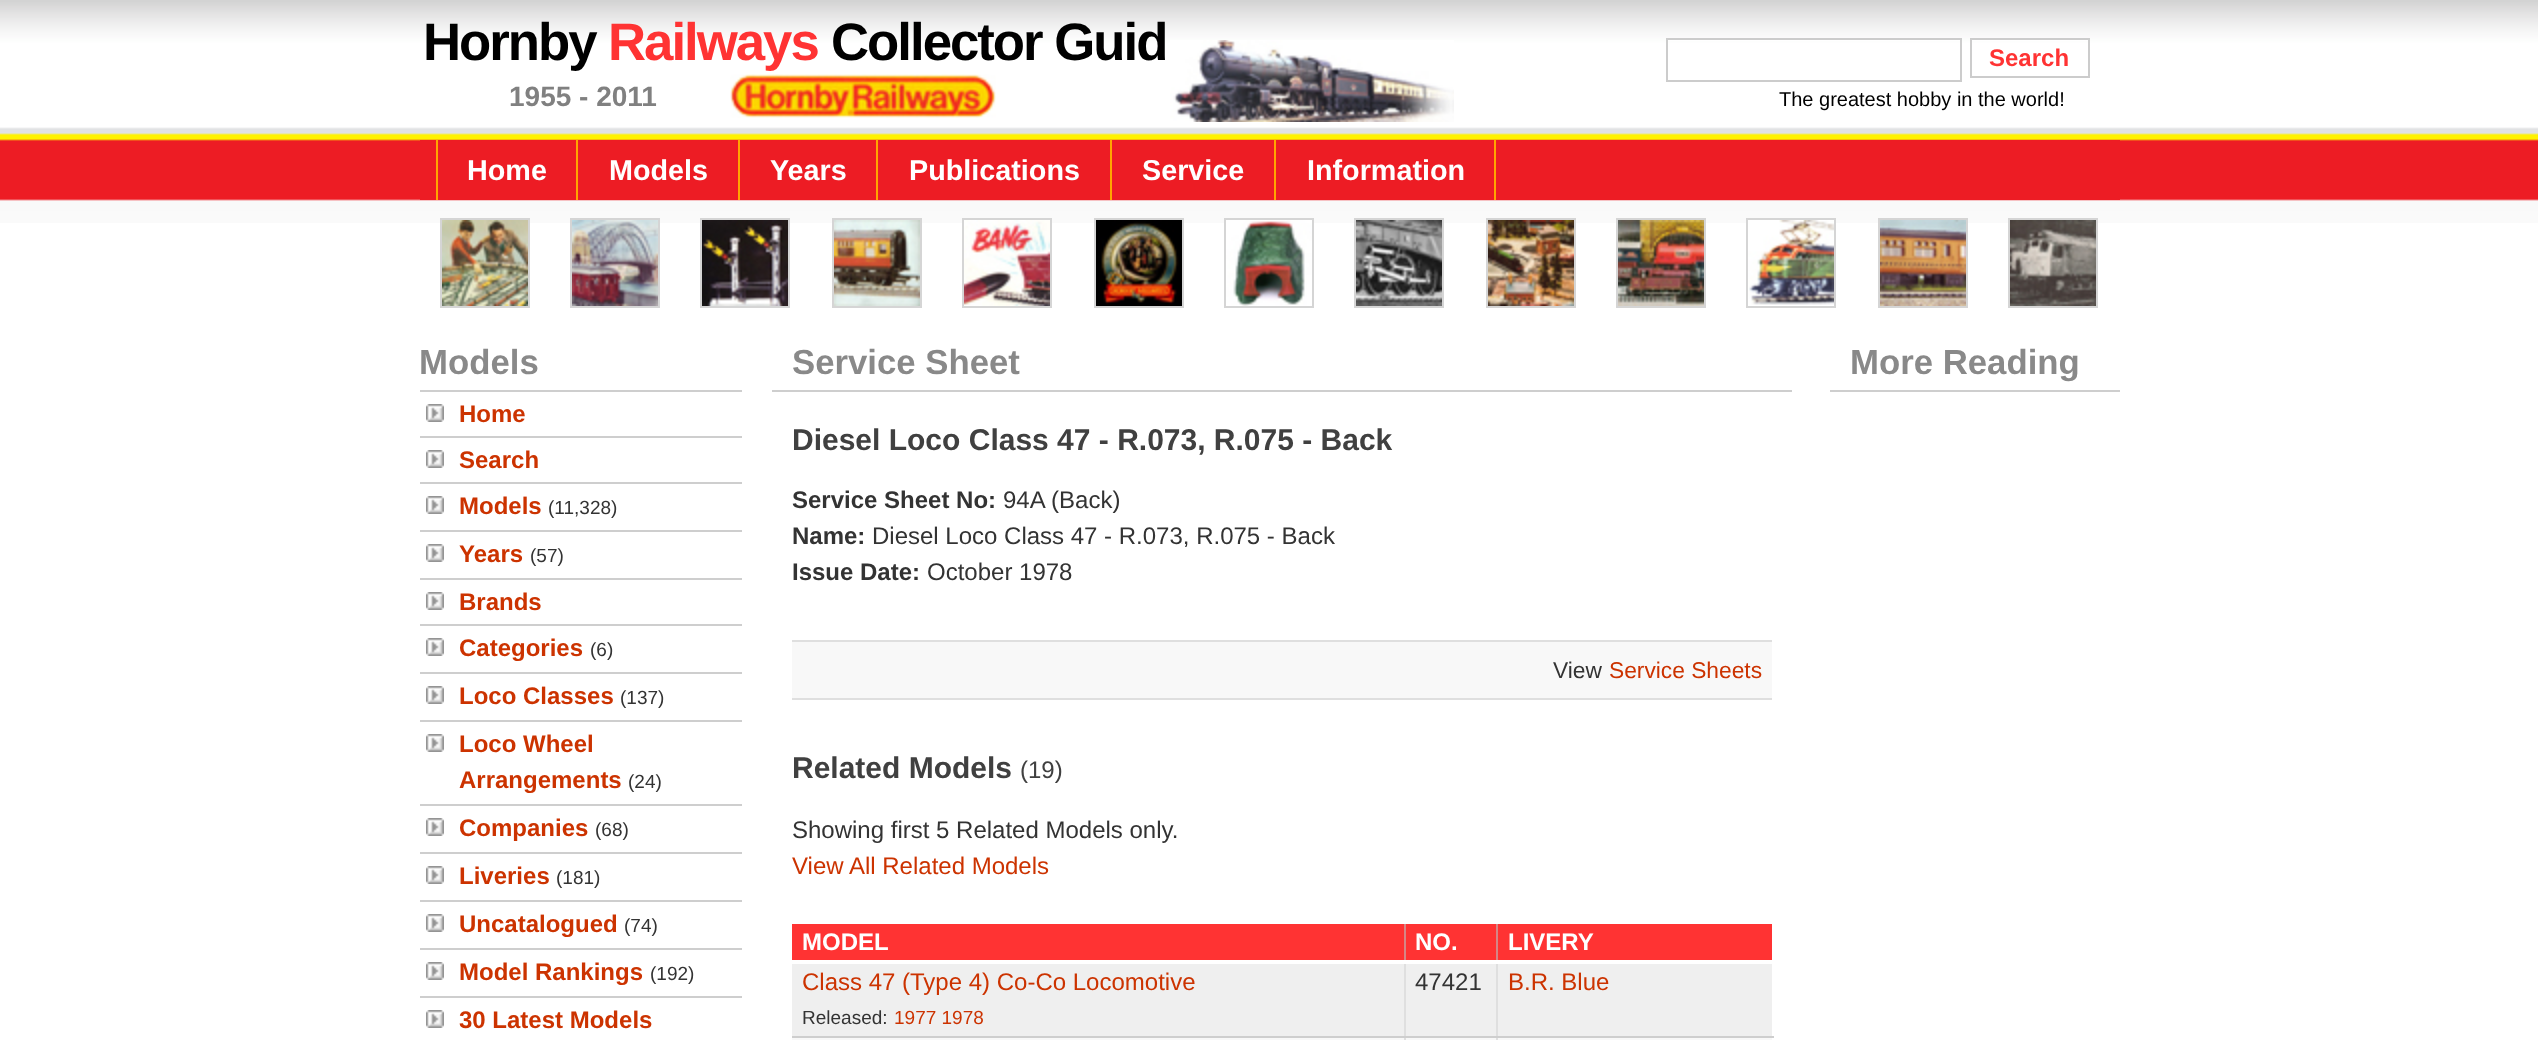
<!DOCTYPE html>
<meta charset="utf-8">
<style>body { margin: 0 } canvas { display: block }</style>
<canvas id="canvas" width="2538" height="1040"></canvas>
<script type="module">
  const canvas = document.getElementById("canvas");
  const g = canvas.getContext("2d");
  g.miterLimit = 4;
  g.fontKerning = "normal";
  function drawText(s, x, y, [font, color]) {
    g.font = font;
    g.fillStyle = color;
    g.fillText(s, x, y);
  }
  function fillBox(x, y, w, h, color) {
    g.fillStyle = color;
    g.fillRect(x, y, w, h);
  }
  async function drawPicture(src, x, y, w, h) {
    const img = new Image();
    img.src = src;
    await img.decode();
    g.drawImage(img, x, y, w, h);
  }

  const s1 = ["bold 52.75px Liberation Sans", "#000000"];
  const s2 = ["bold 52.75px Liberation Sans", "#FF3333"];
  const s3 = ["bold 24px Liberation Sans", "#FF3333"];
  const s4 = ["bold 28px Liberation Sans", "#808080"];
  const s5 = ["20px Liberation Sans", "#000000"];
  const s6 = ["bold 28.75px Liberation Sans", "#FFFFFF"];
  const s7 = ["bold 34.75px Liberation Sans", "#898989"];
  const s8 = ["bold 24px Liberation Sans", "#CC3300"];
  const s9 = ["19px Liberation Sans", "#333333"];
  const s10 = ["bold 30px Liberation Sans", "#404040"];
  const s11 = ["bold 24px Liberation Sans", "#333333"];
  const s12 = ["24px Liberation Sans", "#333333"];
  const s13 = ["22.75px Liberation Sans", "#333333"];
  const s14 = ["22.75px Liberation Sans", "#CC3300"];
  const s15 = ["24px Liberation Sans", "#404040"];
  const s16 = ["24px Liberation Sans", "#CC3300"];
  const s17 = ["bold 24px Liberation Sans", "#FFFFFF"];
  const s18 = ["19px Liberation Sans", "#CC3300"];

  fillBox(0, 0, 2538, 1040, "#FFFFFF");
  await drawPicture("pic1.png", 0, 0, 2538, 223);
  g.letterSpacing = "-2px";
  drawText("Hornby", 423, 60, s1);
  drawText("Railways", 608, 60, s2);
  drawText("Collector Guid", 831, 60, s1);
  await drawPicture("pic2.png", 1170, 40, 284, 82);
  fillBox(1668, 40, 292, 1, "#FFFFFF");
  g.strokeStyle = "#CCCCCC";
  g.lineWidth = 2;
  g.strokeRect(1667, 39, 294, 42);
  fillBox(1972, 40, 116, 1, "#FFFFFF");
  g.strokeRect(1971, 39, 118, 38);
  g.letterSpacing = "0px";
  drawText("Search", 1989, 66, s3);
  drawText("1955 - 2011", 509, 106, s4);
  await drawPicture("pic3.png", 730, 74, 266, 44);
  drawText("The greatest hobby in the world!", 1779, 106, s5);
  fillBox(420, 140, 1700, 60, "#ED1C24");
  fillBox(576, 140, 2, 60, "#FFA500");
  fillBox(436, 140, 2, 60, "#FFA500");
  drawText("Home", 467, 180, s6);
  fillBox(738, 140, 2, 60, "#FFA500");
  drawText("Models", 609, 180, s6);
  fillBox(876, 140, 2, 60, "#FFA500");
  drawText("Years", 770, 180, s6);
  fillBox(1110, 140, 2, 60, "#FFA500");
  drawText("Publications", 909, 180, s6);
  fillBox(1274, 140, 2, 60, "#FFA500");
  drawText("Service", 1142, 180, s6);
  fillBox(1494, 140, 2, 60, "#FFA500");
  drawText("Information", 1307, 180, s6);
  g.strokeStyle = "#D5D5D5";
  g.strokeRect(441, 219, 88, 88);
  await drawPicture("pic4.png", 442, 220, 86, 86);
  g.strokeRect(571, 219, 88, 88);
  await drawPicture("pic5.png", 572, 220, 86, 86);
  g.strokeRect(701, 219, 88, 88);
  await drawPicture("pic6.png", 702, 220, 86, 86);
  g.strokeRect(833, 219, 88, 88);
  await drawPicture("pic7.png", 834, 220, 86, 86);
  g.strokeRect(963, 219, 88, 88);
  await drawPicture("pic8.png", 964, 220, 86, 86);
  g.strokeRect(1095, 219, 88, 88);
  await drawPicture("pic9.png", 1096, 220, 86, 86);
  g.strokeRect(1225, 219, 88, 88);
  await drawPicture("pic10.png", 1226, 220, 86, 86);
  g.strokeRect(1355, 219, 88, 88);
  await drawPicture("pic11.png", 1356, 220, 86, 86);
  g.strokeRect(1487, 219, 88, 88);
  await drawPicture("pic12.png", 1488, 220, 86, 86);
  g.strokeRect(1617, 219, 88, 88);
  await drawPicture("pic13.png", 1618, 220, 86, 86);
  g.strokeRect(1747, 219, 88, 88);
  await drawPicture("pic14.png", 1748, 220, 86, 85);
  g.strokeRect(1879, 219, 88, 88);
  await drawPicture("pic15.png", 1880, 220, 86, 86);
  g.strokeRect(2009, 219, 88, 88);
  await drawPicture("pic16.png", 2010, 220, 86, 86);
  fillBox(420, 390, 322, 2, "#CECECE");
  drawText("Models", 419, 374, s7);
  await drawPicture("pic17.png", 426, 404, 18, 18);
  fillBox(420, 436, 322, 2, "#CECECE");
  drawText("Home", 459, 422, s8);
  await drawPicture("pic17.png", 426, 450, 18, 18);
  fillBox(420, 482, 322, 2, "#CECECE");
  drawText("Search", 459, 468, s8);
  await drawPicture("pic17.png", 426, 496, 18, 18);
  fillBox(420, 530, 322, 2, "#CECECE");
  drawText("Models", 459, 514, s8);
  drawText("(11,328)", 548, 514, s9);
  await drawPicture("pic17.png", 426, 544, 18, 18);
  fillBox(420, 578, 322, 2, "#CECECE");
  drawText("Years", 459, 562, s8);
  drawText("(57)", 530, 562, s9);
  await drawPicture("pic17.png", 426, 592, 18, 18);
  fillBox(420, 624, 322, 2, "#CECECE");
  drawText("Brands", 459, 610, s8);
  await drawPicture("pic17.png", 426, 638, 18, 18);
  fillBox(420, 672, 322, 2, "#CECECE");
  drawText("Categories", 459, 656, s8);
  drawText("(6)", 590, 656, s9);
  await drawPicture("pic17.png", 426, 686, 18, 18);
  fillBox(420, 720, 322, 2, "#CECECE");
  drawText("Loco Classes", 459, 704, s8);
  drawText("(137)", 620, 704, s9);
  await drawPicture("pic17.png", 426, 734, 18, 18);
  fillBox(420, 804, 322, 2, "#CECECE");
  drawText("Loco Wheel", 459, 752, s8);
  drawText("Arrangements", 459, 788, s8);
  drawText("(24)", 628, 788, s9);
  await drawPicture("pic17.png", 426, 818, 18, 18);
  fillBox(420, 852, 322, 2, "#CECECE");
  drawText("Companies", 459, 836, s8);
  drawText("(68)", 595, 836, s9);
  await drawPicture("pic17.png", 426, 866, 18, 18);
  fillBox(420, 900, 322, 2, "#CECECE");
  drawText("Liveries", 459, 884, s8);
  drawText("(181)", 556, 884, s9);
  await drawPicture("pic17.png", 426, 914, 18, 18);
  fillBox(420, 948, 322, 2, "#CECECE");
  drawText("Uncatalogued", 459, 932, s8);
  drawText("(74)", 624, 932, s9);
  await drawPicture("pic17.png", 426, 962, 18, 18);
  fillBox(420, 996, 322, 2, "#CECECE");
  drawText("Model Rankings", 459, 980, s8);
  drawText("(192)", 650, 980, s9);
  await drawPicture("pic17.png", 426, 1010, 18, 18);
  drawText("30 Latest Models", 459, 1028, s8);
  fillBox(772, 390, 1020, 2, "#CECECE");
  drawText("Service Sheet", 792, 374, s7);
  drawText("Diesel Loco Class 47 - R.073, R.075 - Back", 792, 450, s10);
  drawText("Service Sheet No:", 792, 508, s11);
  drawText("94A (Back)", 1003, 508, s12);
  drawText("Name:", 792, 544, s11);
  drawText("Diesel Loco Class 47 - R.073, R.075 - Back", 872, 544, s12);
  drawText("Issue Date:", 792, 580, s11);
  drawText("October 1978", 927, 580, s12);
  fillBox(792, 642, 980, 56, "#F8F8F8");
  fillBox(792, 640, 980, 2, "#DFDFDF");
  fillBox(792, 698, 980, 2, "#DFDFDF");
  drawText("View", 1553, 678, s13);
  drawText("Service Sheets", 1609, 678, s14);
  drawText("Related Models", 792, 778, s10);
  drawText("(19)", 1020, 778, s15);
  drawText("Showing first 5 Related Models only.", 792, 838, s12);
  drawText("View All Related Models", 792, 874, s16);
  fillBox(792, 924, 612, 36, "#FF3333");
  drawText("MODEL", 802, 950, s17);
  fillBox(1406, 924, 90, 36, "#FF3333");
  fillBox(792, 964, 980, 72, "#EFEFEF");
  fillBox(792, 1038, 980, 2, "#F8F8F8");
  fillBox(1496, 1036, 2, 4, "#DFDFDF");
  fillBox(1496, 1036, 278, 2, "#CECECE");
  fillBox(1496, 962, 2, 76, "#DFDFDF");
  fillBox(1404, 1036, 2, 4, "#DFDFDF");
  fillBox(1404, 1036, 94, 2, "#CECECE");
  fillBox(1404, 962, 2, 76, "#DFDFDF");
  fillBox(1404, 924, 2, 40, "#D68686");
  fillBox(1402, 960, 4, 4, "#FFFFFF");
  drawText("NO.", 1415, 950, s17);
  fillBox(1498, 924, 274, 36, "#FF3333");
  fillBox(1496, 924, 2, 40, "#D68686");
  fillBox(1496, 960, 2, 4, "#FFFFFF");
  drawText("LIVERY", 1508, 950, s17);
  fillBox(792, 1036, 614, 2, "#CECECE");
  drawText("Class 47 (Type 4) Co-Co Locomotive", 802, 990, s16);
  drawText("Released:", 802, 1024, s9);
  drawText("1977 1978", 894, 1024, s18);
  drawText("47421", 1415, 990, s12);
  drawText("B.R. Blue", 1508, 990, s16);
  fillBox(1830, 390, 290, 2, "#CECECE");
  drawText("More Reading", 1850, 374, s7);
</script>
